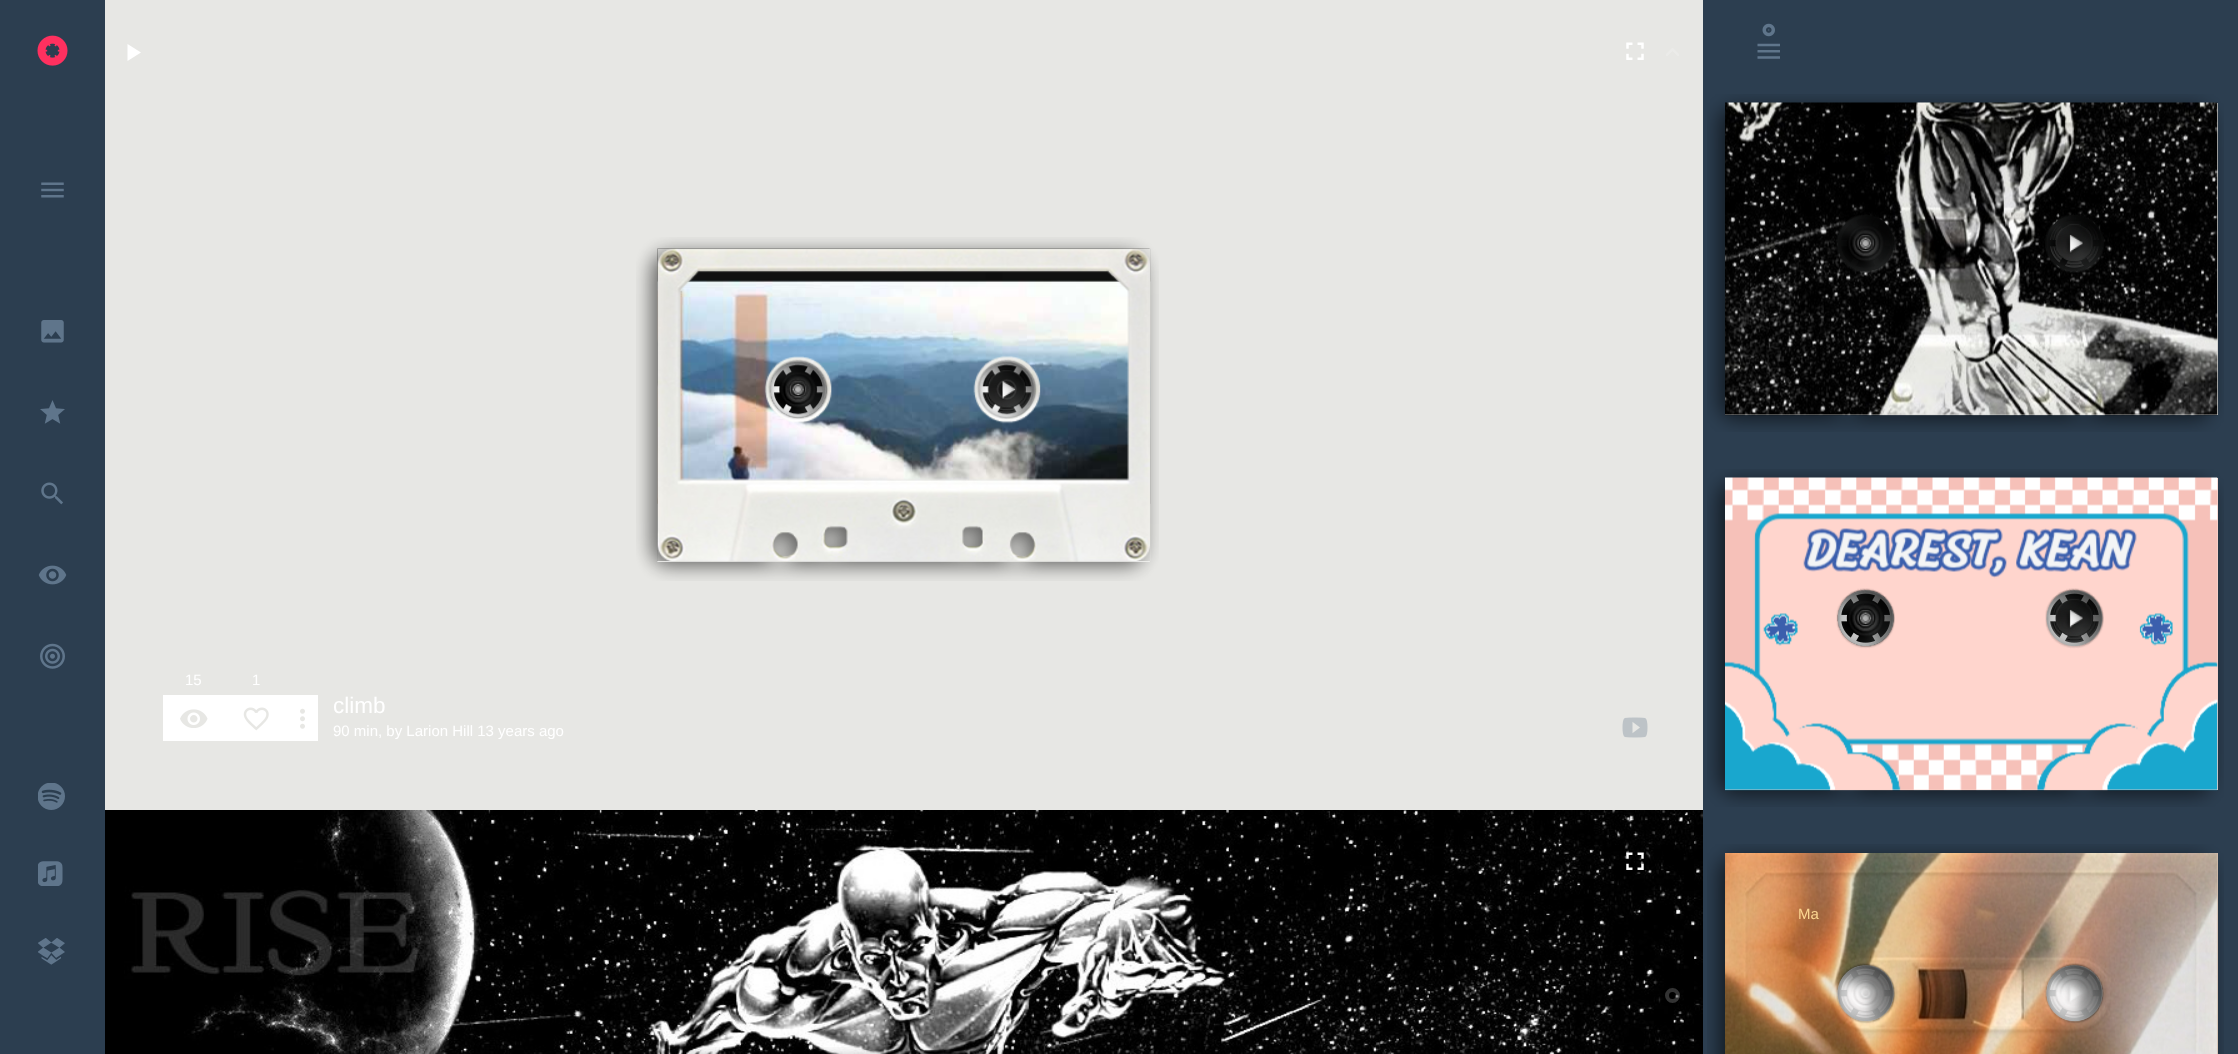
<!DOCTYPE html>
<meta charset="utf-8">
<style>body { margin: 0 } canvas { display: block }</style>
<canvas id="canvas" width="2238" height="1054"></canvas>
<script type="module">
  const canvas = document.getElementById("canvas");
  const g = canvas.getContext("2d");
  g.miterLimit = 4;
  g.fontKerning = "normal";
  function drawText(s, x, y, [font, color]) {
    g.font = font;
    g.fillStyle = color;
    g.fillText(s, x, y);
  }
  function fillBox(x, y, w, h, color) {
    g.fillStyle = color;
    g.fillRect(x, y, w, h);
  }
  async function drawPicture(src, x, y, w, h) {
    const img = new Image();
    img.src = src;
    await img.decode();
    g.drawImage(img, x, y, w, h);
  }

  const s1 = ["15px Liberation Sans", "#FFFFFF"];
  const s2 = ["22.5px Liberation Sans", "#FFFFFF"];
  const s3 = ["15px Liberation Sans", "#FCD792"];

  fillBox(0, 0, 2238, 1054, "#2C3E50");
  fillBox(105, 0, 1598, 810, "#E7E7E4");
  await drawPicture("pic13.png", 636, 237, 523, 344);
  await drawPicture("pic14.png", 657, 248, 494, 314);
  await drawPicture("pic15.png", 657, 248, 494, 256);
  await drawPicture("pic1.png", 657, 248, 493, 314);
  await drawPicture("pic2.png", 37, 35, 31, 31);
  await drawPicture("pic3.png", 41, 182, 23, 16);
  await drawPicture("pic4.png", 41, 320, 23, 23);
  await drawPicture("pic5.png", 40, 400, 25, 24);
  await drawPicture("pic6.png", 41, 482, 22, 23);
  await drawPicture("pic7.png", 38, 565, 29, 20);
  await drawPicture("pic8.png", 40, 643, 25, 26);
  await drawPicture("pic9.png", 38, 783, 27, 27);
  await drawPicture("pic10.png", 38, 861, 25, 25);
  await drawPicture("pic11.png", 38, 938, 27, 27);
  g.fillStyle = "#FFFFFF";
  g.beginPath();
  g.moveTo(127.5, 44);
  g.lineTo(141, 52.5);
  g.lineTo(127.5, 61);
  g.closePath();
  g.fill();
  await drawPicture("pic12.png", 1666, 48, 13, 8);
  await drawPicture("pic16.png", 1626, 42, 18, 18);
  drawText("15", 185, 685, s1);
  fillBox(163, 695, 155, 45, "#FFFFFF");
  await drawPicture("pic17.png", 180, 709, 28, 19);
  drawText("1", 252, 685, s1);
  await drawPicture("pic18.png", 243, 707, 26, 24);
  await drawPicture("pic19.png", 300, 708, 5, 21);
  drawText("climb", 333, 713, s2);
  drawText("90 min, by Larion Hill 13 years ago", 333, 736, s1);
  await drawPicture("pic20.png", 1622, 717, 26, 21);
  fillBox(163, 740, 155, 1, "#FFFFFF");
  await drawPicture("pic21.png", 105, 810, 1598, 244);
  await drawPicture("pic22.png", 1626, 852, 18, 18);
  await drawPicture("pic23.png", 658, 1047, 462, 7);
  g.beginPath();
  g.arc(1672.5, 995.5, 5.5, 0, Math.PI * 2);
  g.strokeStyle = "rgba(255, 254, 255, 0.2)";
  g.lineWidth = 4;
  g.stroke();
  await drawPicture("pic24.png", 1762, 23, 13, 14);
  await drawPicture("pic25.png", 1757, 43, 23, 16);
  await drawPicture("pic26.png", 1707, 94, 517, 338);
  fillBox(1725, 103, 493, 312, "#CFCFCC");
  await drawPicture("pic27.png", 1725, 102, 493, 314);
  await drawPicture("pic30.png", 1838, 216, 56, 56);
  await drawPicture("pic29.png", 1838, 215, 55, 57);
  await drawPicture("pic28.png", 1836, 215, 59, 59);
  await drawPicture("pic33.png", 2047, 216, 52, 52);
  await drawPicture("pic32.png", 2047, 215, 55, 56);
  await drawPicture("pic31.png", 2045, 215, 59, 58);
  await drawPicture("pic26.png", 1707, 469, 517, 338);
  fillBox(1725, 478, 493, 312, "#F9D2CA");
  await drawPicture("pic34.png", 1725, 477, 493, 314);
  await drawPicture("pic37.png", 1837, 591, 57, 56);
  await drawPicture("pic36.png", 1837, 590, 57, 56);
  await drawPicture("pic35.png", 1836, 588, 59, 61);
  await drawPicture("pic40.png", 2047, 591, 52, 52);
  await drawPicture("pic39.png", 2046, 590, 57, 57);
  await drawPicture("pic38.png", 2045, 588, 59, 61);
  await drawPicture("pic41.png", 1707, 844, 517, 210);
  fillBox(2217, 853, 1, 201, "#D5BEAB");
  await drawPicture("pic42.png", 1725, 853, 493, 201);
  drawText("Ma", 1798, 919, s3);
  await drawPicture("pic45.png", 1837, 966, 58, 56);
  await drawPicture("pic44.png", 1837, 965, 57, 56);
  await drawPicture("pic43.png", 1836, 963, 59, 61);
  await drawPicture("pic48.png", 2045, 966, 58, 56);
  await drawPicture("pic47.png", 2046, 965, 57, 57);
  await drawPicture("pic46.png", 2045, 963, 59, 60);
</script>
